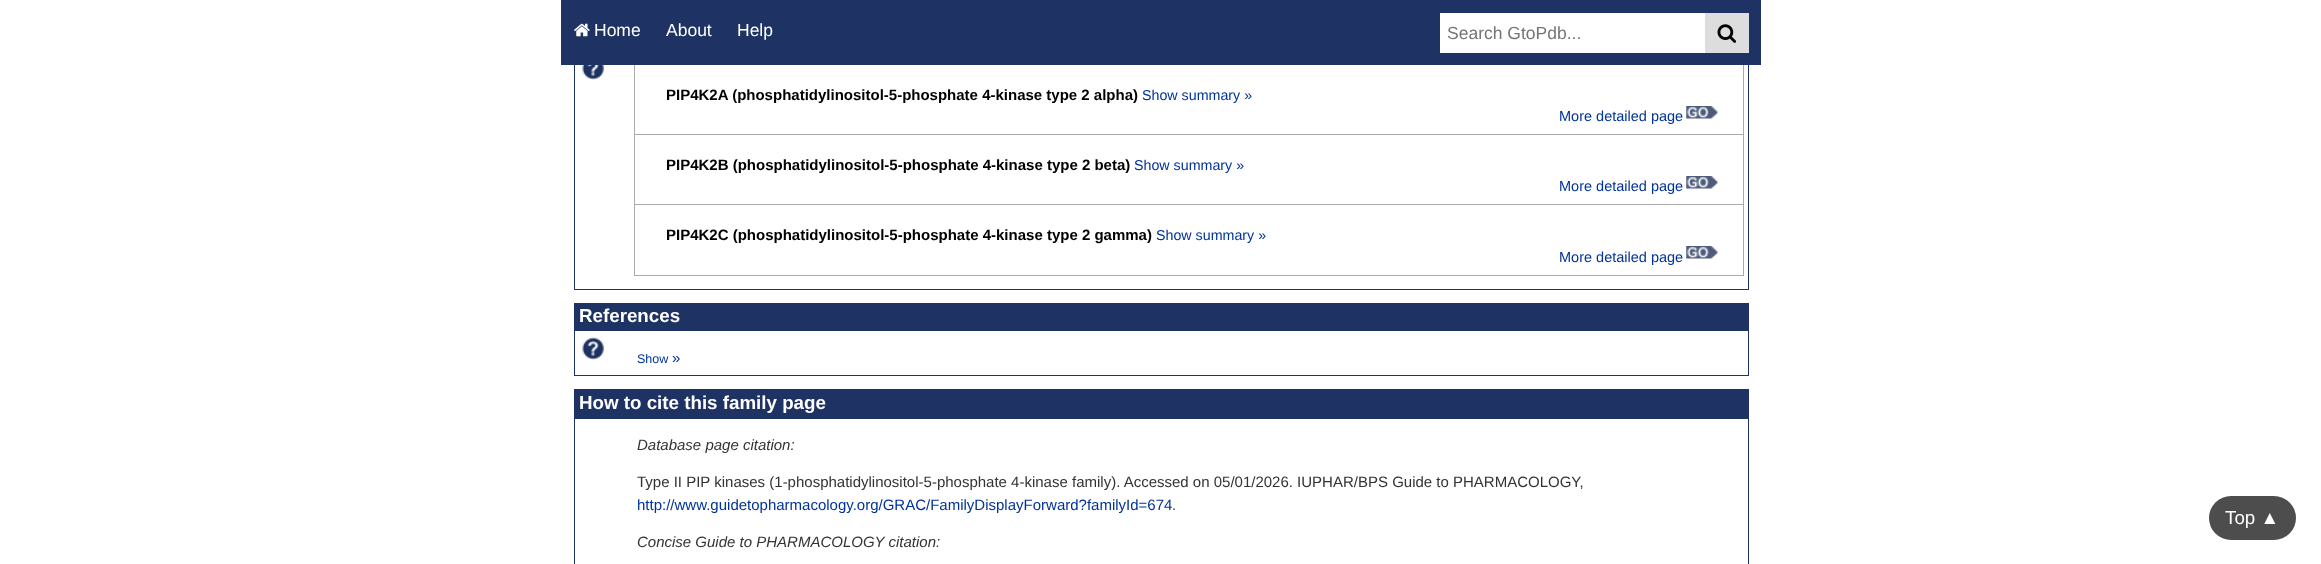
<!DOCTYPE html>
<meta charset="utf-8">
<style>body { margin: 0 } canvas { display: block }</style>
<canvas id="canvas" width="2321" height="564"></canvas>
<script type="module">
  const canvas = document.getElementById("canvas");
  const g = canvas.getContext("2d");
  g.miterLimit = 4;
  g.fontKerning = "normal";
  function drawText(s, x, y, [font, color]) {
    g.font = font;
    g.fillStyle = color;
    g.fillText(s, x, y);
  }
  function fillBox(x, y, w, h, color) {
    g.fillStyle = color;
    g.fillRect(x, y, w, h);
  }
  function fillRounded(x, y, w, h, r, color) {
    g.fillStyle = color;
    g.beginPath();
    g.roundRect(x, y, w, h, r);
    g.fill();
  }
  async function drawPicture(src, x, y, w, h) {
    const img = new Image();
    img.src = src;
    await img.decode();
    g.drawImage(img, x, y, w, h);
  }

  const s1 = ["17.5px Liberation Sans", "#FFFFFF"];
  const s2 = ["17.5px Liberation Sans", "#757575"];
  const s3 = ["bold 15px Liberation Sans", "#000000"];
  const s4 = ["14.25px Liberation Sans", "#003399"];
  const s5 = ["14.5px Liberation Sans", "#003399"];
  const s6 = ["bold 18.75px Liberation Sans", "#FFFFFF"];
  const s7 = ["12.5px Liberation Sans", "#003399"];
  const s8 = ["15px Liberation Sans", "#003399"];
  const s9 = ["italic 15px Liberation Sans", "#333333"];
  const s10 = ["15px Liberation Sans", "#333333"];
  const s11 = ["18.75px Liberation Sans", "#FFFFFF"];

  fillBox(0, 0, 2321, 564, "#FFFFFF");
  g.strokeStyle = "#1E3363";
  g.strokeRect(574.5, 50.5, 1174, 239);
  fillBox(634, 134, 1110, 1, "#AAAAAA");
  fillBox(634, 204, 1110, 1, "#AAAAAA");
  fillBox(1743, 204, 1, 72, "#AAAAAA");
  fillBox(1743, 64, 1, 141, "#AAAAAA");
  fillBox(634, 275, 1110, 1, "#AAAAAA");
  fillBox(634, 204, 1, 72, "#AAAAAA");
  fillBox(634, 64, 1, 141, "#AAAAAA");
  fillBox(561, 0, 1200, 65, "#1E3363");
  await drawPicture("pic1.png", 574, 23, 16, 14);
  drawText("Home", 594, 36, s1);
  drawText("About", 666, 36, s1);
  drawText("Help", 737, 36, s1);
  fillBox(1440, 13, 265, 40, "#FFFFFF");
  drawText("Search GtoPdb...", 1447, 39, s2);
  fillBox(1705, 13, 44, 40, "#DDDDDD");
  await drawPicture("pic2.png", 1717, 24, 20, 19);
  await drawPicture("pic3.png", 582, 65, 22, 15);
  drawText("PIP4K2A (phosphatidylinositol-5-phosphate 4-kinase type 2 alpha)", 666, 100, s3);
  drawText("Show summary »", 1142, 100, s4);
  drawText("More detailed page", 1559, 121, s5);
  await drawPicture("pic4.png", 1686, 106, 32, 13);
  drawText("PIP4K2B (phosphatidylinositol-5-phosphate 4-kinase type 2 beta)", 666, 170, s3);
  drawText("Show summary »", 1134, 170, s4);
  drawText("More detailed page", 1559, 191, s5);
  await drawPicture("pic4.png", 1686, 176, 32, 13);
  drawText("PIP4K2C (phosphatidylinositol-5-phosphate 4-kinase type 2 gamma)", 666, 240, s3);
  drawText("Show summary »", 1156, 240, s4);
  drawText("More detailed page", 1559, 262, s5);
  await drawPicture("pic4.png", 1686, 246, 32, 13);
  fillBox(574, 303, 1175, 27, "#1E3363");
  drawText("References", 579, 322, s6);
  g.strokeRect(574.5, 330.5, 1174, 45);
  await drawPicture("pic5.png", 582, 337, 22, 23);
  drawText("Show", 637, 363, s7);
  drawText("»", 672, 363, s8);
  fillBox(574, 389, 1175, 29, "#1E3363");
  drawText("How to cite this family page", 579, 409, s6);
  g.strokeRect(574.5, 418.5, 1174, 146);
  drawText("Database page citation:", 637, 450, s9);
  drawText("Type II PIP kinases (1-phosphatidylinositol-5-phosphate 4-kinase family). Accessed on 05/01/2026. IUPHAR/BPS Guide to PHARMACOLOGY,", 637, 487, s10);
  drawText("http://www.guidetopharmacology.org/GRAC/FamilyDisplayForward?familyId=674", 637, 510, s8);
  drawText(".", 1172, 510, s10);
  drawText("Concise Guide to PHARMACOLOGY citation:", 637, 547, s9);
  fillRounded(2209, 496, 87, 44, 22, "#4D4D4D");
  drawText("Top ▲", 2225, 524, s11);
</script>
